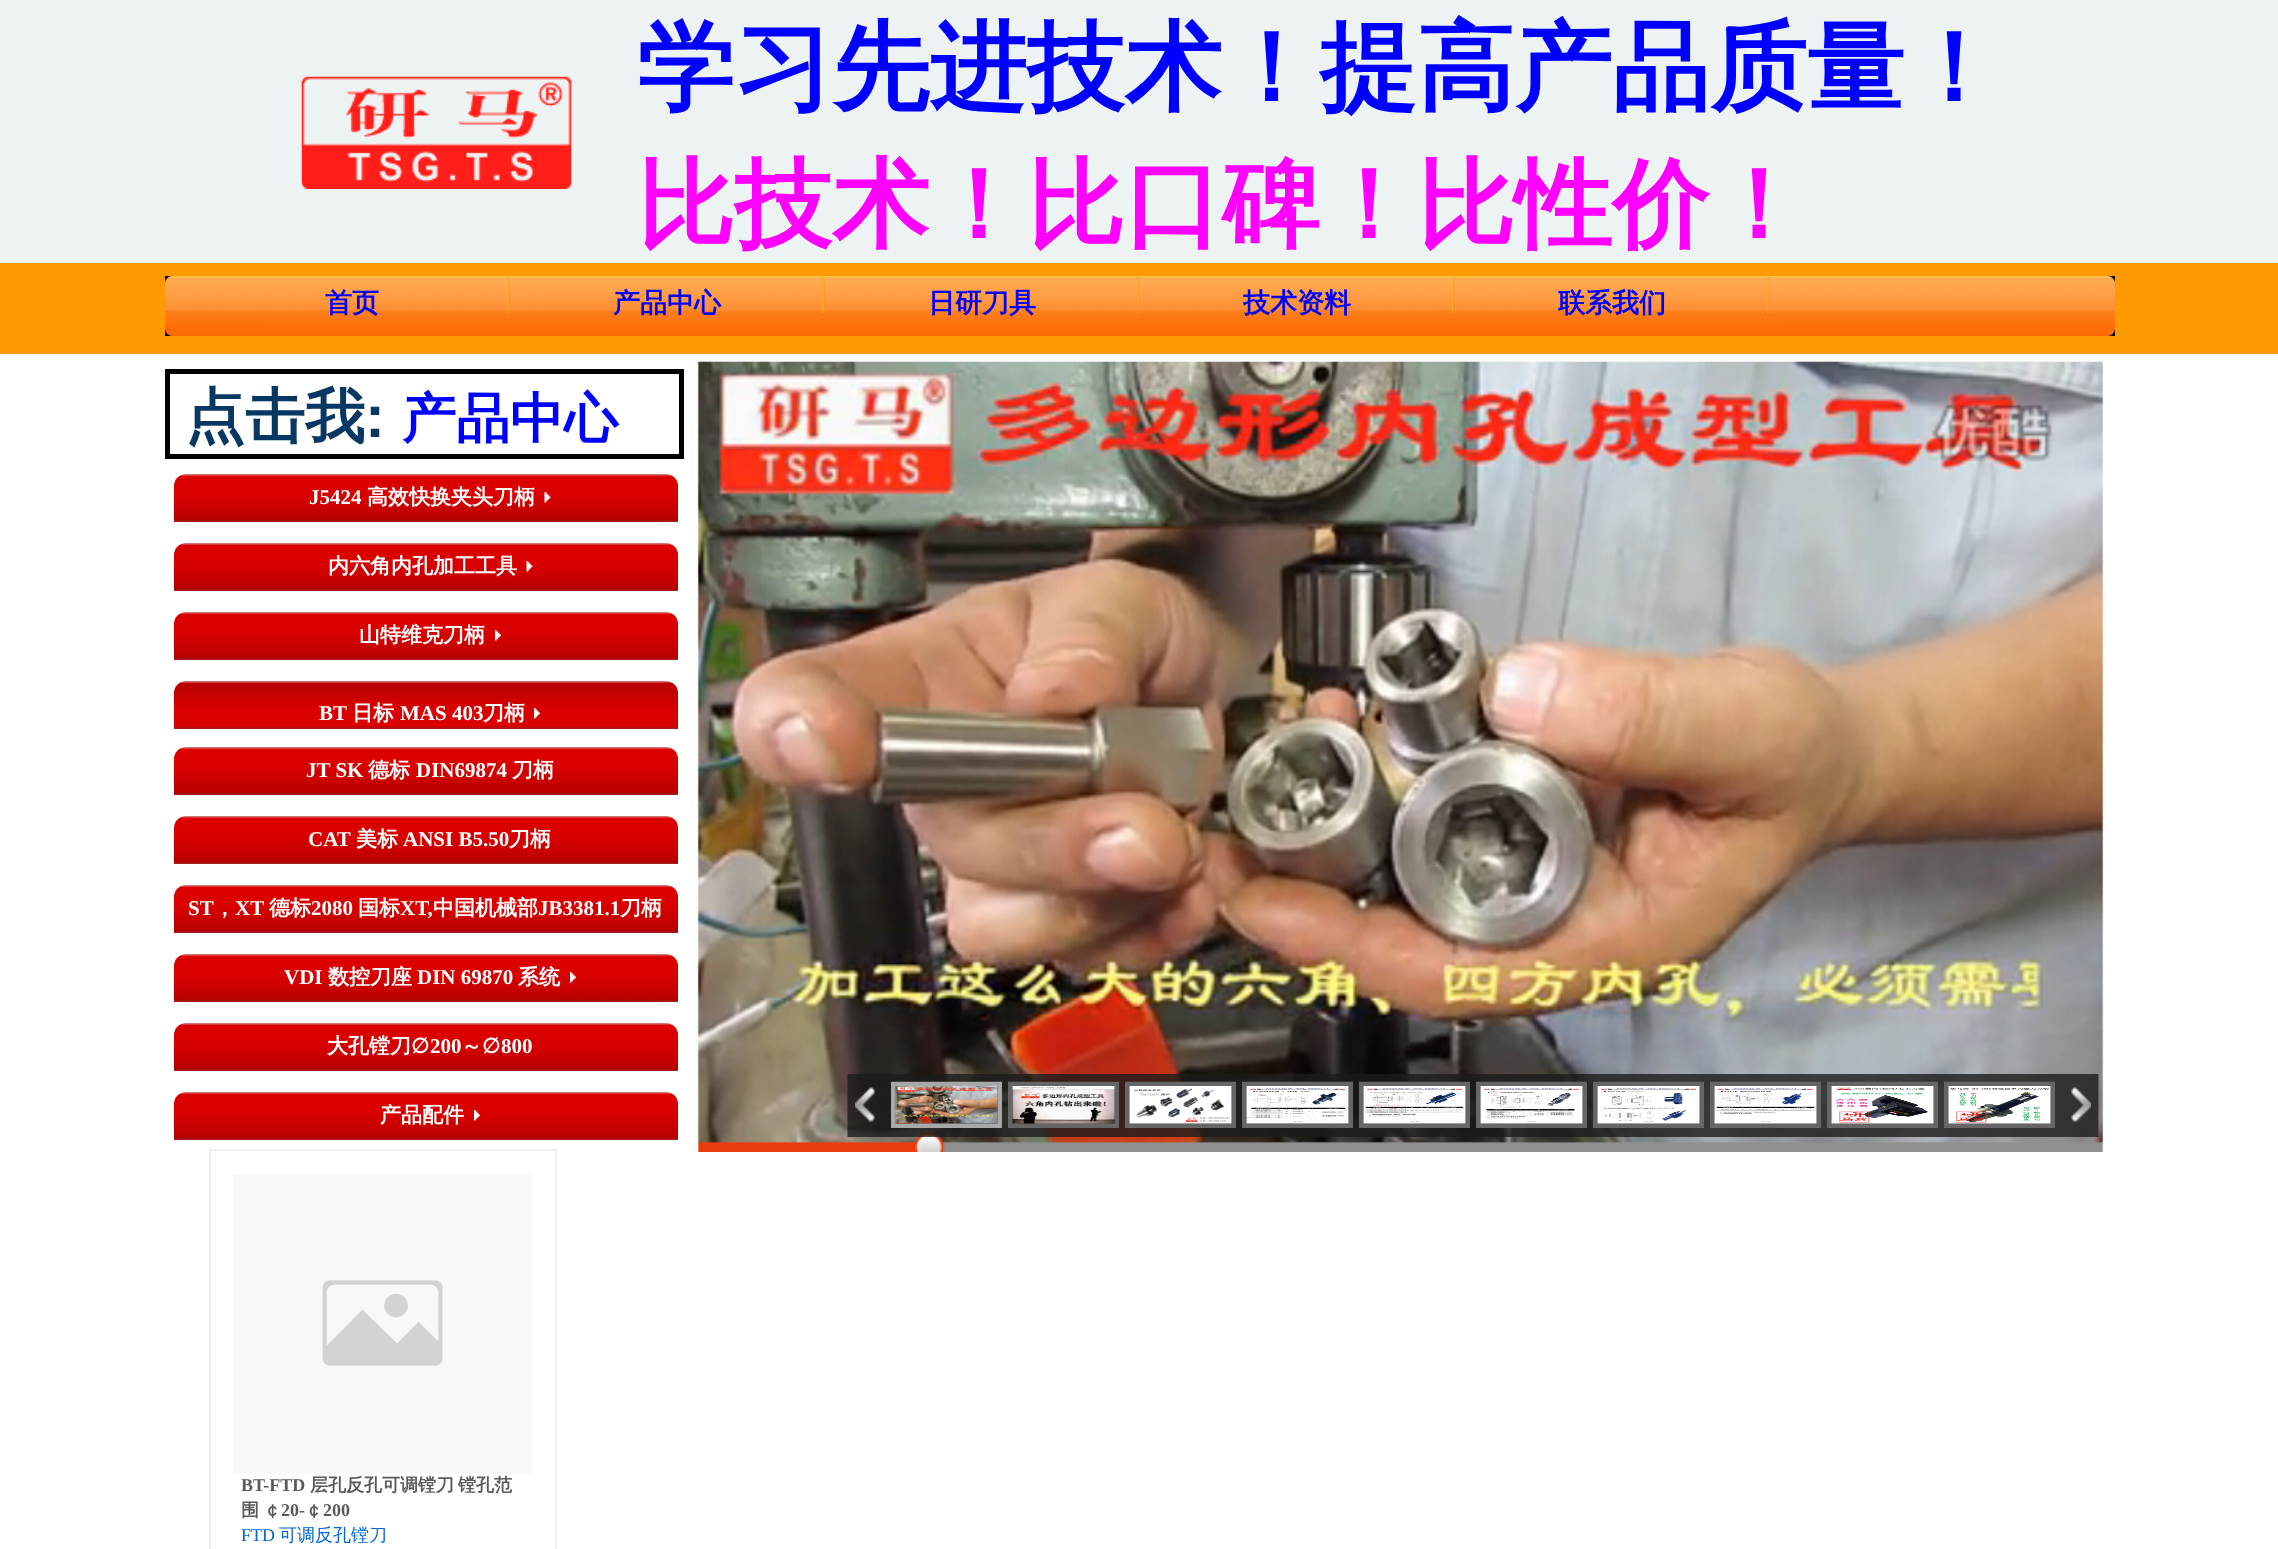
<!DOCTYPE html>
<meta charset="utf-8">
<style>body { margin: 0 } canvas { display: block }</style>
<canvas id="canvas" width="2278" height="1549"></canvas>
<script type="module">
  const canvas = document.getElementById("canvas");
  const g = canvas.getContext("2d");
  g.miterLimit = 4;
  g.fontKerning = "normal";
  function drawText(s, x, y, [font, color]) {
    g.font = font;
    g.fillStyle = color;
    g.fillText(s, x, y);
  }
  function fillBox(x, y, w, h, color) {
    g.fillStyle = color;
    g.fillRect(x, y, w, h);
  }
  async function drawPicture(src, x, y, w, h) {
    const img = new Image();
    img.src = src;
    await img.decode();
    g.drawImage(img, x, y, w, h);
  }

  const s1 = ["bold 97.5px WenQuanYi Zen Hei", "#0000FF"];
  const s2 = ["bold 97.5px WenQuanYi Zen Hei", "#FF00FF"];
  const s3 = ["bold 27px WenQuanYi Zen Hei", "#0000FF"];
  const s4 = ["bold 60px WenQuanYi Zen Hei", "#073763"];
  const s5 = ["bold 60px Liberation Sans", "#073763"];
  const s6 = ["bold 54px WenQuanYi Zen Hei", "#0000FF"];
  const s7 = ["bold 21px Liberation Serif", "#FFFFFF"];
  const s8 = ["bold 21px WenQuanYi Zen Hei", "#FFFFFF"];
  const s9 = ["bold 21px DejaVu Sans", "#FFFFFF"];
  const s10 = ["bold 18px Liberation Serif", "#5A5A5A"];
  const s11 = ["bold 18px WenQuanYi Zen Hei", "#5A5A5A"];
  const s12 = ["18px Liberation Serif", "#0064D4"];
  const s13 = ["500 18px WenQuanYi Zen Hei", "#0064D4"];

  fillBox(0, 0, 2278, 1549, "#FFFFFF");
  fillBox(0, 0, 2278, 263, "#ECF3F2");
  await drawPicture("pic1.png", 301, 76, 271, 113);
  drawText("学习先进技术！提高产品质量！", 637, 101, s1);
  drawText("比技术！比口碑！比性价！", 637, 238, s2);
  fillBox(0, 263, 2278, 91, "#FF9900");
  fillBox(165, 276, 1950, 60, "#000000");
  await drawPicture("pic2.png", 165, 276, 1950, 60);
  await drawPicture("pic3.png", 507, 276, 3, 38);
  drawText("首页", 325, 312, s3);
  await drawPicture("pic4.png", 822, 276, 3, 38);
  drawText("产品中心", 613, 312, s3);
  await drawPicture("pic3.png", 1137, 276, 3, 38);
  drawText("日研刀具", 928, 312, s3);
  await drawPicture("pic4.png", 1452, 276, 3, 38);
  drawText("技术资料", 1243, 312, s3);
  await drawPicture("pic4.png", 1767, 276, 3, 38);
  drawText("联系我们", 1558, 312, s3);
  g.strokeStyle = "#000000";
  g.lineWidth = 5;
  g.strokeRect(167.5, 371.5, 514, 85);
  drawText("点击我", 185, 437, s4);
  drawText(":", 365, 437, s5);
  drawText("产品中心", 402, 437, s6);
  await drawPicture("pic5.png", 690, 361, 1414, 791);
  await drawPicture("pic6.png", 174, 474, 504, 48);
  drawText("J5424", 309, 504, s7);
  drawText("高效快换夹头刀柄", 367, 504, s8);
  await drawPicture("pic7.png", 544, 492, 7, 11);
  await drawPicture("pic8.png", 174, 543, 504, 48);
  drawText("内六角内孔加工工具", 328, 573, s8);
  await drawPicture("pic7.png", 526, 561, 7, 11);
  await drawPicture("pic9.png", 174, 612, 504, 48);
  drawText("山特维克刀柄", 359, 642, s8);
  await drawPicture("pic10.png", 495, 630, 6, 11);
  await drawPicture("pic11.png", 174, 681, 504, 48);
  drawText("BT", 319, 720, s7);
  drawText("日标", 352, 720, s8);
  drawText("MAS 403", 400, 720, s7);
  drawText("刀柄", 483, 720, s8);
  await drawPicture("pic12.png", 534, 708, 6, 11);
  await drawPicture("pic13.png", 174, 747, 504, 48);
  drawText("JT SK", 306, 777, s7);
  drawText("德标", 368, 777, s8);
  drawText("DIN69874", 416, 777, s7);
  drawText("刀柄", 512, 777, s8);
  await drawPicture("pic14.png", 174, 816, 504, 48);
  drawText("CAT", 308, 846, s7);
  drawText("美标", 356, 846, s8);
  drawText("ANSI B5.50", 403, 846, s7);
  drawText("刀柄", 509, 846, s8);
  await drawPicture("pic15.png", 174, 885, 504, 48);
  drawText("ST", 188, 915, s7);
  drawText("，", 214, 915, s8);
  drawText("XT", 235, 915, s7);
  drawText("德标", 269, 915, s8);
  drawText("2080", 311, 915, s7);
  drawText("国标", 358, 915, s8);
  drawText("XT,", 400, 915, s7);
  drawText("中国机械部", 433, 915, s8);
  drawText("JB3381.1", 538, 915, s7);
  drawText("刀柄", 620, 915, s8);
  await drawPicture("pic15.png", 174, 954, 504, 48);
  drawText("VDI", 284, 984, s7);
  drawText("数控刀座", 328, 984, s8);
  drawText("DIN 69870", 417, 984, s7);
  drawText("系统", 518, 984, s8);
  await drawPicture("pic10.png", 570, 972, 6, 11);
  await drawPicture("pic9.png", 174, 1023, 504, 48);
  drawText("大孔镗刀", 327, 1053, s8);
  drawText("∅", 411, 1053, s9);
  drawText("200", 430, 1053, s7);
  drawText("～", 461, 1053, s8);
  drawText("∅", 482, 1053, s9);
  drawText("800", 501, 1053, s7);
  await drawPicture("pic14.png", 174, 1092, 504, 48);
  drawText("产品配件", 380, 1122, s8);
  await drawPicture("pic10.png", 474, 1110, 6, 11);
  g.strokeStyle = "#EEEEEE";
  g.lineWidth = 2;
  g.strokeRect(210, 1150, 346, 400);
  await drawPicture("pic16.png", 233, 1174, 299, 299);
  drawText("BT-FTD", 241, 1491, s10);
  drawText("层孔反孔可调镗刀", 310, 1491, s11);
  drawText("镗孔范", 458, 1491, s11);
  g.wordSpacing = "-1px";
  drawText("围 ￠", 241, 1516, s11);
  g.wordSpacing = "0px";
  drawText("20-", 281, 1516, s10);
  drawText("￠", 305, 1516, s11);
  drawText("200", 323, 1516, s10);
  drawText("FTD", 241, 1541, s12);
  drawText("可调反孔镗刀", 279, 1541, s13);
</script>
